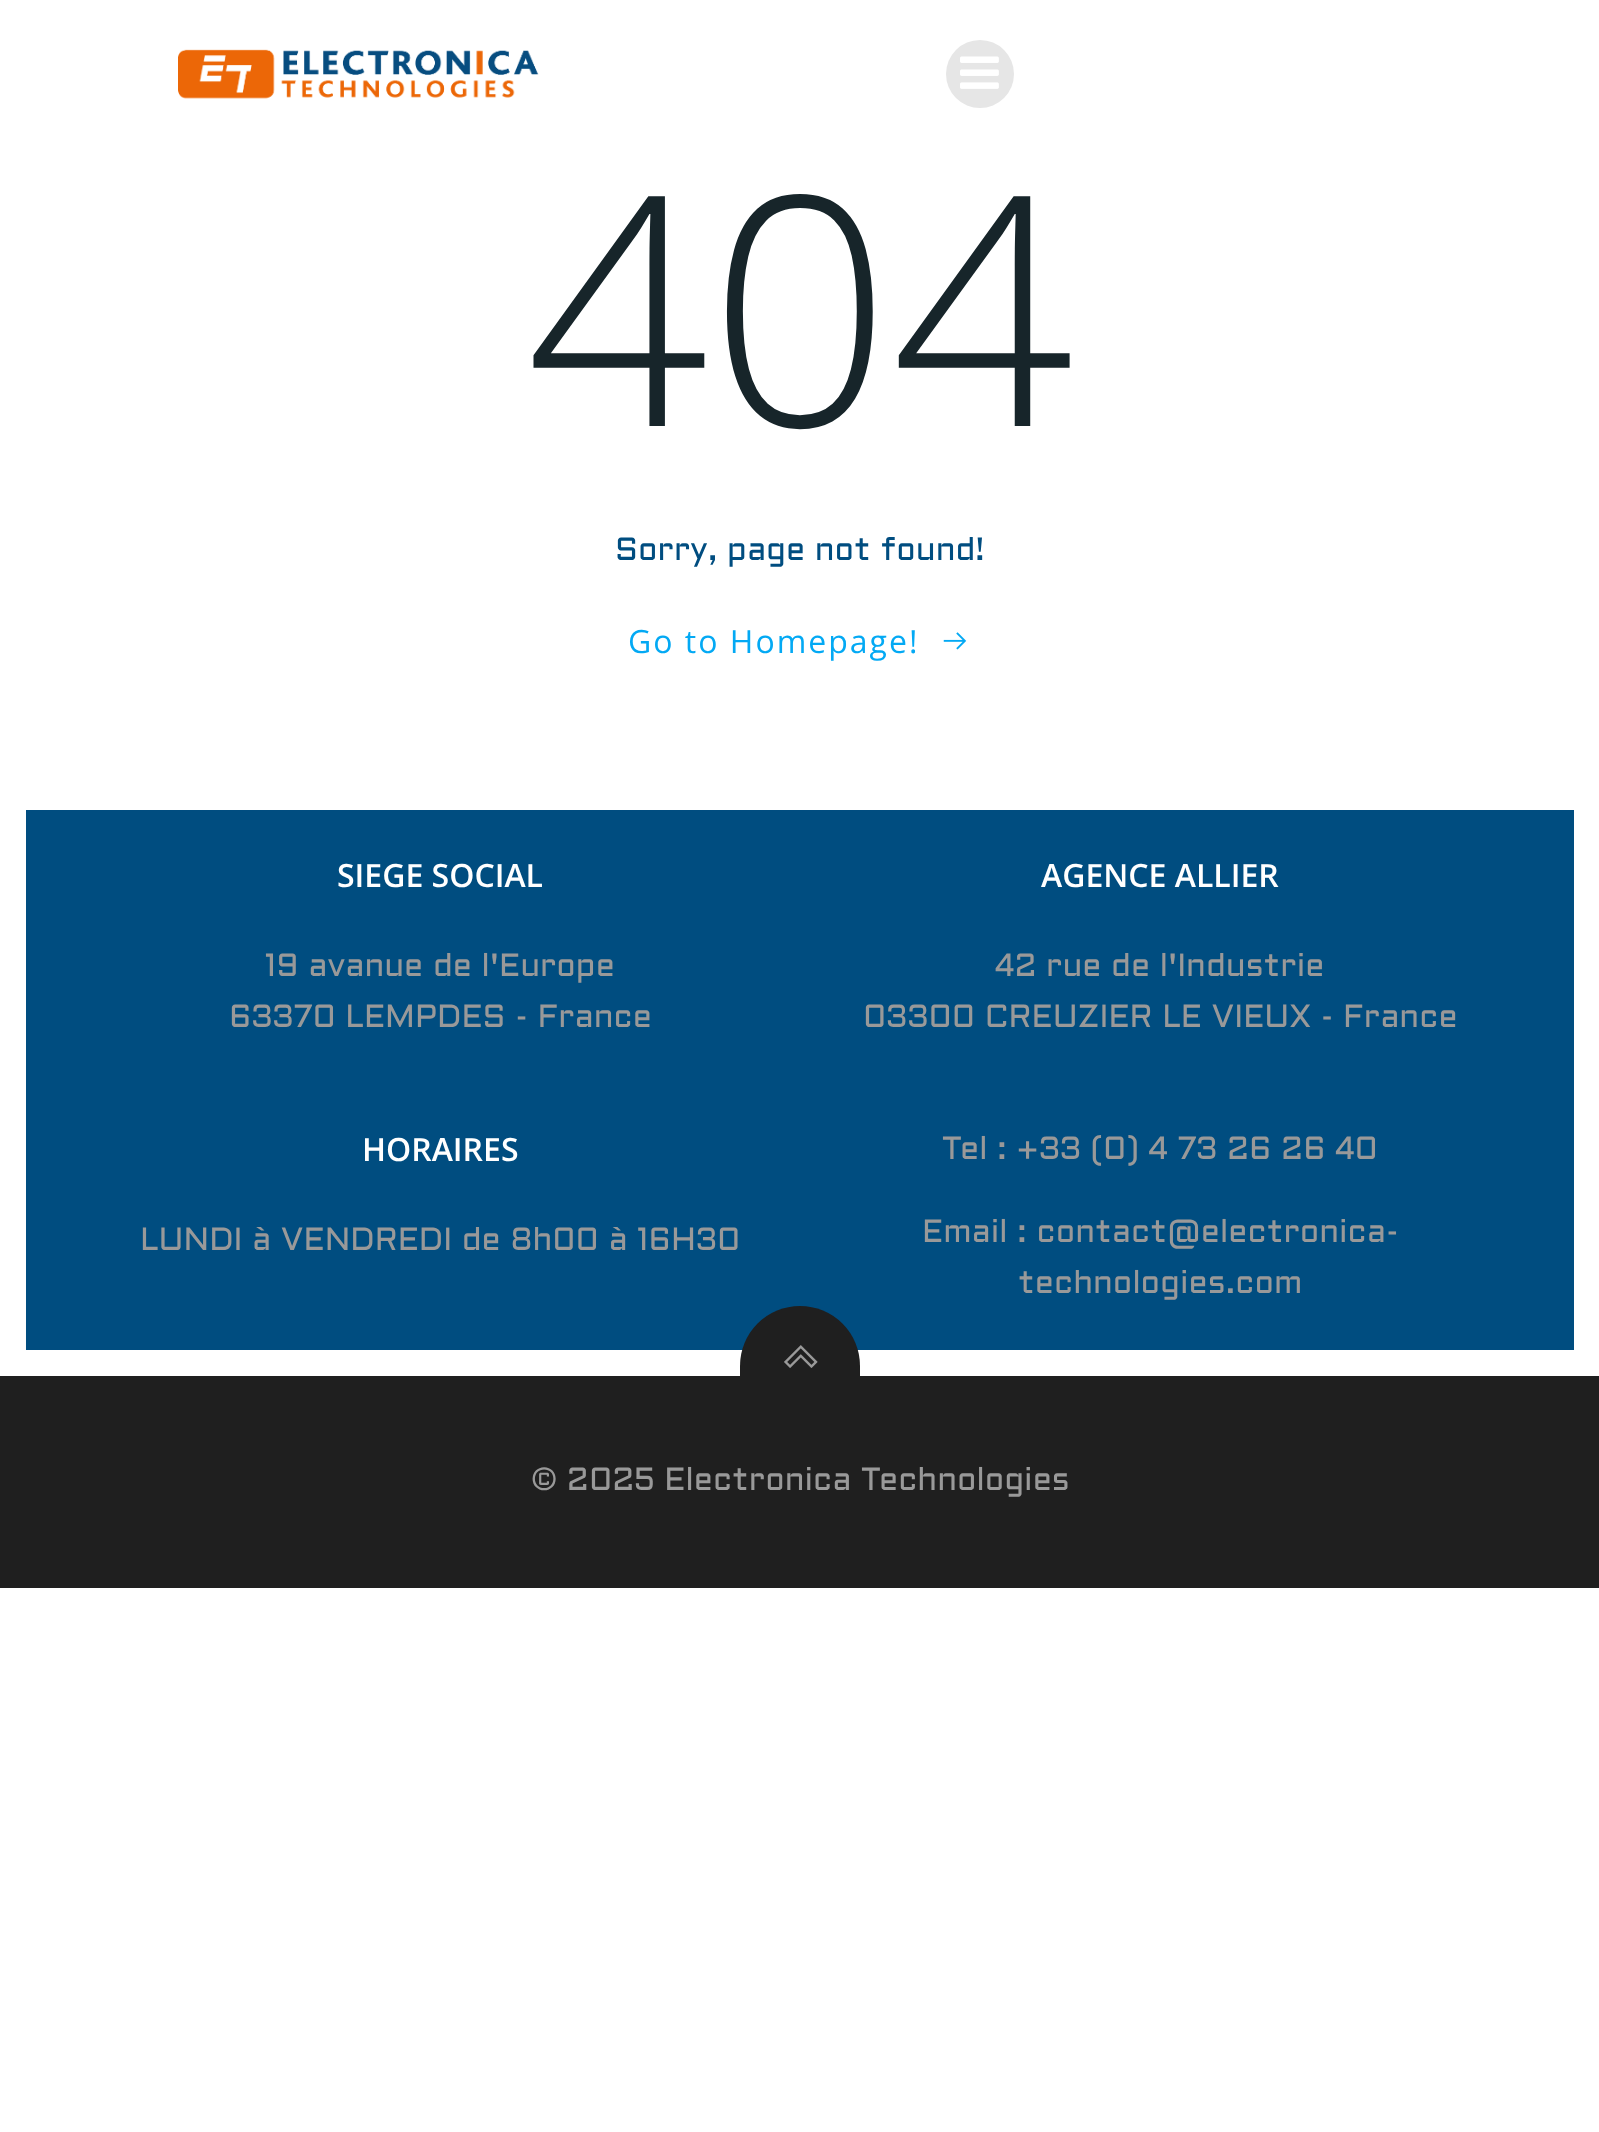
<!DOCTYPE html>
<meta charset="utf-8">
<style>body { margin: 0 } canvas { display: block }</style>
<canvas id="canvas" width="1599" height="2132"></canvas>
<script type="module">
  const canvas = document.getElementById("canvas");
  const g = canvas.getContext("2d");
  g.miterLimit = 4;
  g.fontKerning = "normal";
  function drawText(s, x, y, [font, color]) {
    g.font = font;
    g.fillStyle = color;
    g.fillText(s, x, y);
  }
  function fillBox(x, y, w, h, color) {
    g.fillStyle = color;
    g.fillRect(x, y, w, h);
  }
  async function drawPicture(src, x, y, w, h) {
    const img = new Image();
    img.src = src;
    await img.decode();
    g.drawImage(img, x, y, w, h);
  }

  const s1 = ["300 320px Open Sans", "#17252A"];
  const s2 = ["32px Aldrich", "#004D80"];
  const s3 = ["32px Open Sans", "#03A9F4"];
  const s4 = ["600 32px Open Sans", "#FFFFFF"];
  const s5 = ["32px Aldrich", "#999999"];

  fillBox(0, 0, 1599, 2132, "#FFFFFF");
  await drawPicture("pic1.png", 178, 49, 361, 50);
  g.fillStyle = "#E6E6E6";
  g.beginPath();
  g.arc(980, 74, 34, 0, Math.PI * 2);
  g.fill();
  await drawPicture("pic2.png", 960, 56, 39, 33);
  drawText("404", 526, 426, s1);
  drawText("Sorry, page not found!", 615, 560, s2);
  g.letterSpacing = "2px";
  drawText("Go to Homepage!", 628, 653, s3);
  await drawPicture("pic3.png", 943, 632, 24, 18);
  g.fillStyle = "#004D80";
  g.beginPath();
  g.roundRect(13, 797, 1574, 566, 13);
  g.fill();
  g.strokeStyle = "#FFFFFF";
  g.lineWidth = 26;
  g.stroke();
  g.letterSpacing = "0px";
  drawText("SIEGE SOCIAL", 337, 887, s4);
  drawText("19 avanue de l'Europe", 265, 976, s5);
  drawText("63370 LEMPDES - France", 229, 1027, s5);
  drawText("AGENCE ALLIER", 1041, 887, s4);
  drawText("42 rue de l'Industrie", 995, 976, s5);
  drawText("03300 CREUZIER LE VIEUX - France", 863, 1027, s5);
  drawText("HORAIRES", 362, 1161, s4);
  drawText("LUNDI à VENDREDI de 8h00 à 16H30", 140, 1250, s5);
  drawText("Tel : +33 (0) 4 73 26 26 40", 942, 1159, s5);
  drawText("Email : contact@electronica-", 922, 1242, s5);
  drawText("technologies.com", 1018, 1293, s5);
  g.fillStyle = "#1F1F1F";
  g.beginPath();
  g.roundRect(740, 1306, 120, 70, [60, 60, 0, 0]);
  g.fill();
  await drawPicture("pic4.png", 784, 1345, 34, 23);
  fillBox(0, 1376, 1599, 212, "#1F1F1F");
  drawText("© 2025 Electronica Technologies", 531, 1490, s5);
</script>
